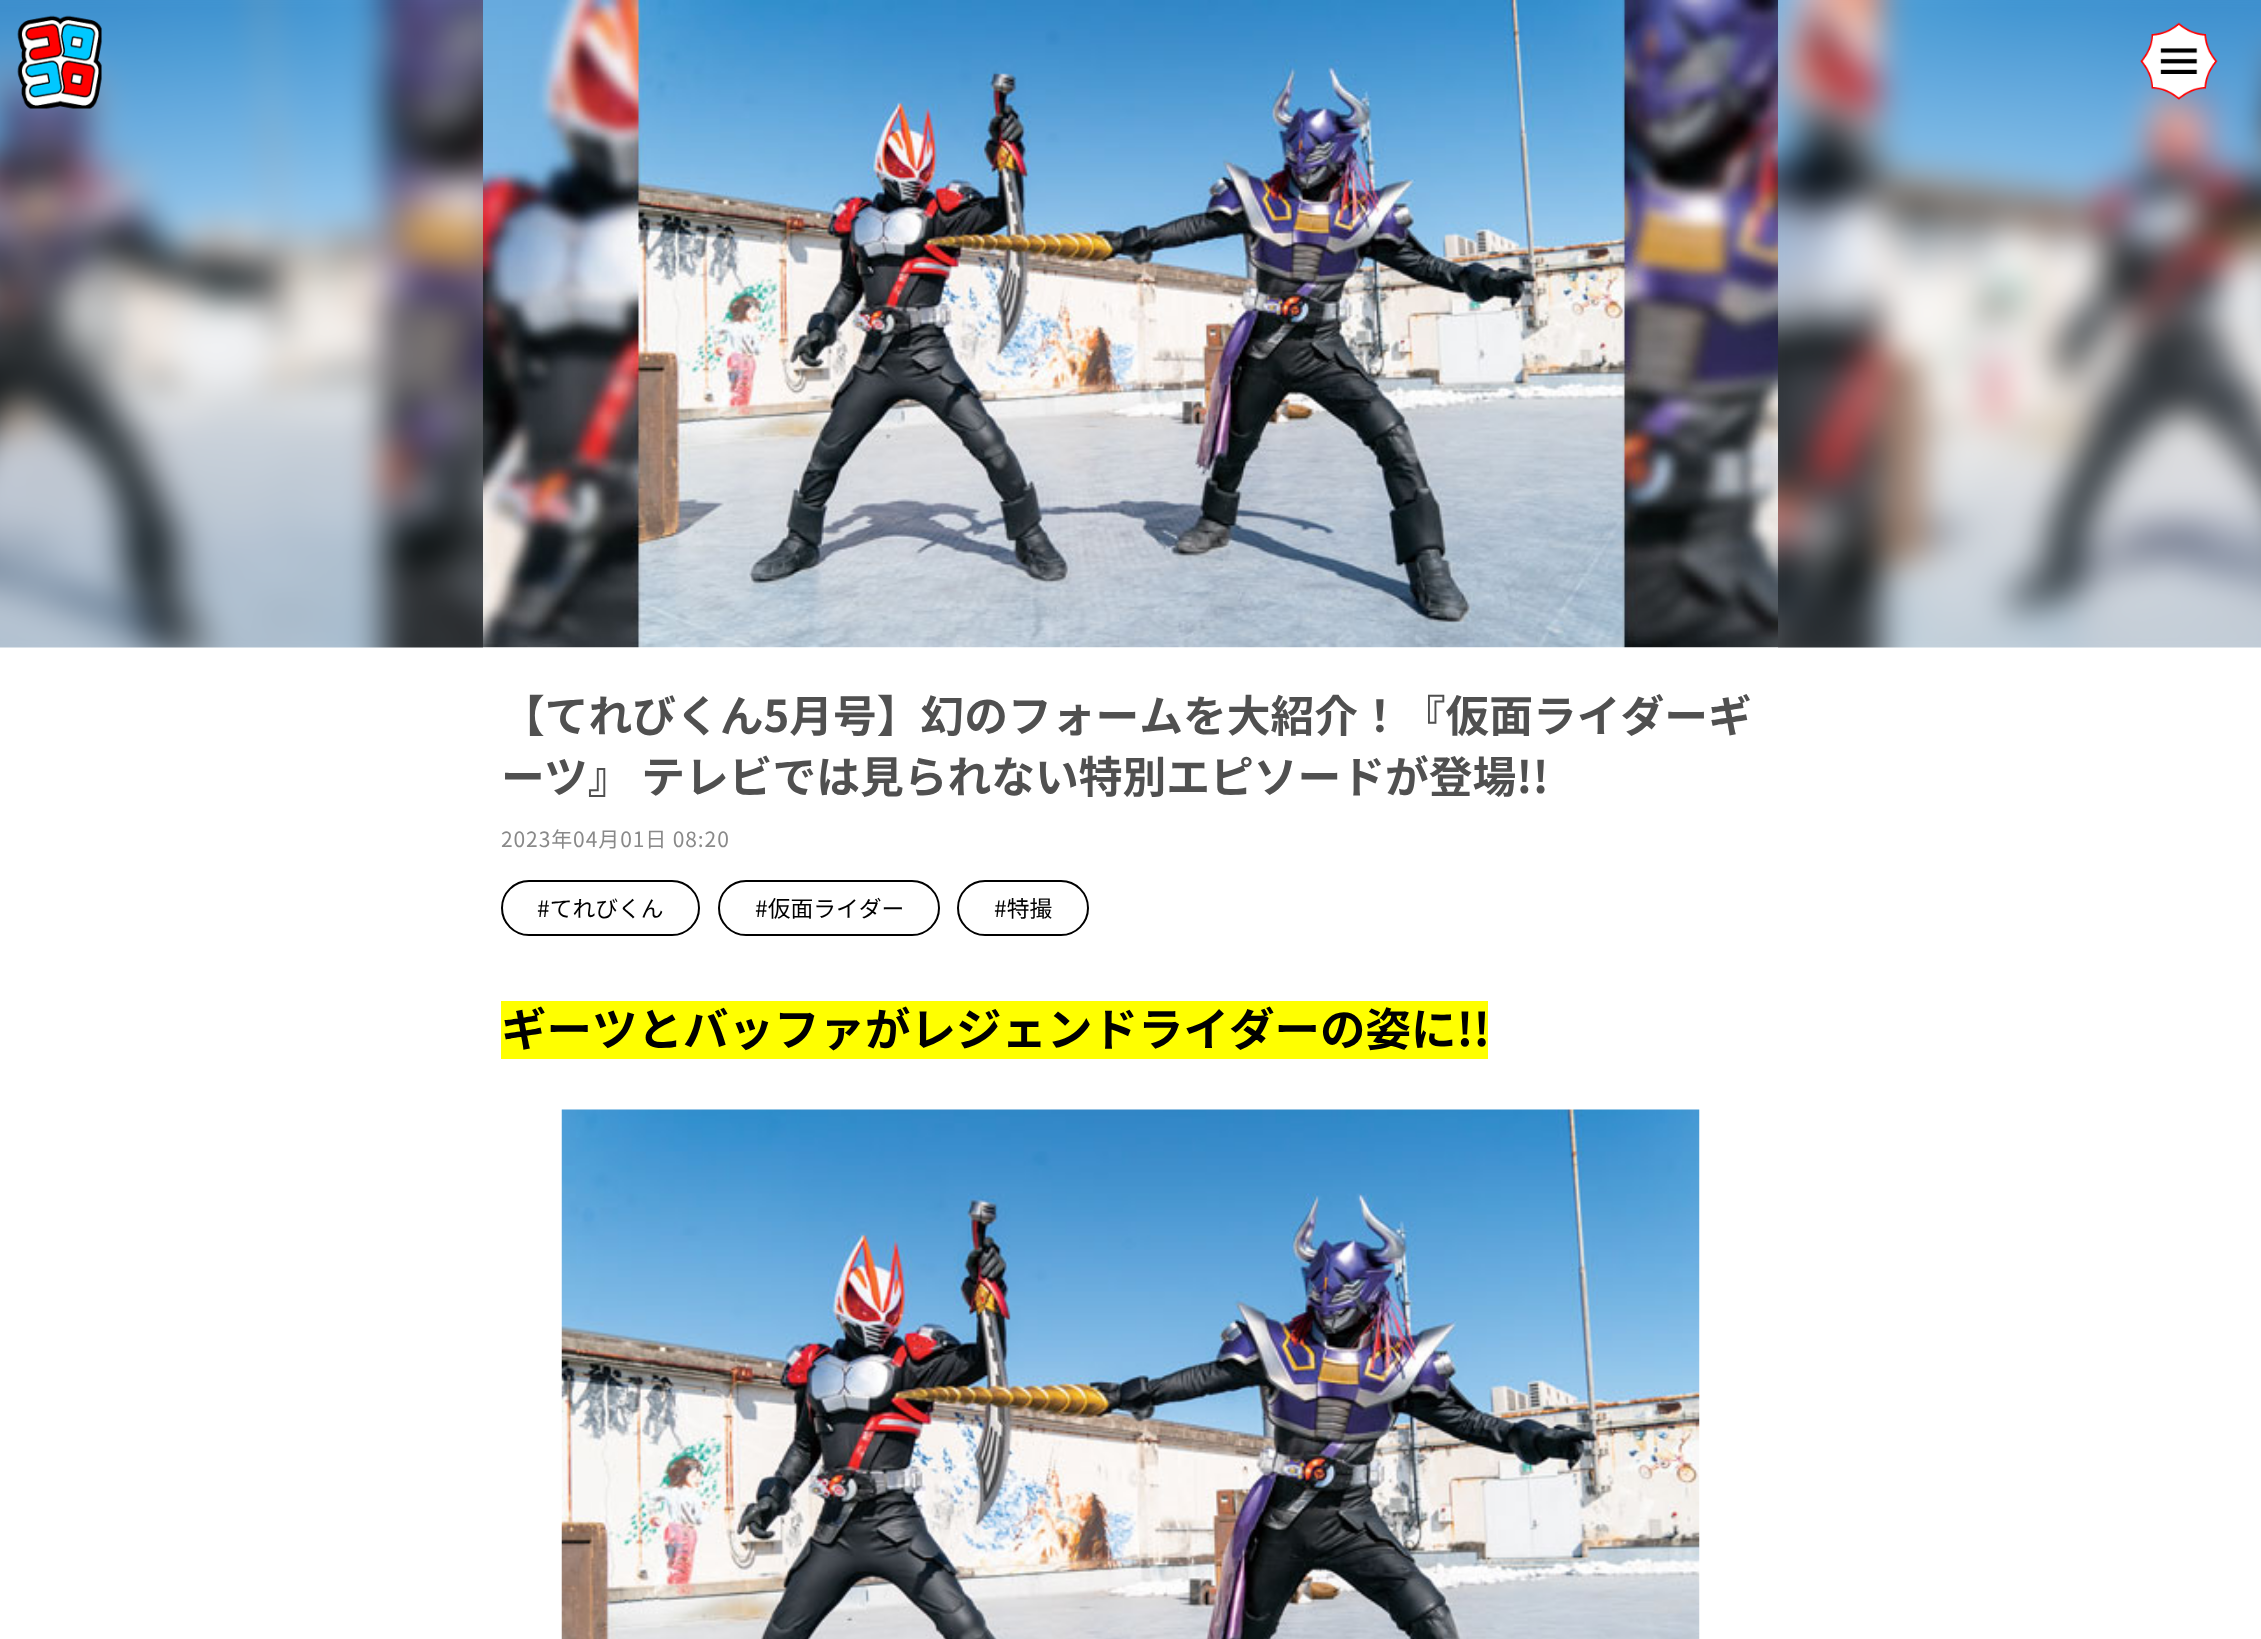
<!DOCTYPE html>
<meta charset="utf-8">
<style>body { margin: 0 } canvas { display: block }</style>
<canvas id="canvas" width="2261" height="1639"></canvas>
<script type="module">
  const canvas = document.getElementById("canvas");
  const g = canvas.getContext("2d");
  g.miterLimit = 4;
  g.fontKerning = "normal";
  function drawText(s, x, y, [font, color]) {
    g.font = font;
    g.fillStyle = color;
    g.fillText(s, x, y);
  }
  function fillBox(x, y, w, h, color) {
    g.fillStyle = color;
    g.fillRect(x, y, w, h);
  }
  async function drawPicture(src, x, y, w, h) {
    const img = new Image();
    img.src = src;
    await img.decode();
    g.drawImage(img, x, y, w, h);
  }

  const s1 = ["bold 43.75px Noto Sans JP", "#505050"];
  const s2 = ["21px Noto Sans JP", "#898989"];
  const s3 = ["22.75px Noto Sans JP", "#000000"];
  const s4 = ["bold 45.5px Noto Sans JP", "#000000"];

  fillBox(0, 0, 2261, 1639, "#FFFFFF");
  await drawPicture("pic3.png", 0, 0, 483, 648);
  await drawPicture("pic1.png", 17, 15, 85, 94);
  await drawPicture("pic5.png", 1778, 0, 483, 648);
  await drawPicture("pic2.png", 2140, 22, 78, 78);
  await drawPicture("pic4.png", 483, 0, 1295, 648);
  drawText("【てれびくん5月号】幻のフォームを大紹介！『仮面ライダーギ", 501, 732, s1);
  drawText("ーツ』 テレビでは見られない特別エピソードが登場!!", 501, 793, s1);
  g.letterSpacing = "0.9px";
  drawText("2023年04月01日 08:20", 501, 847, s2);
  g.beginPath();
  g.roundRect(502, 881, 197, 54, 27);
  g.strokeStyle = "#000000";
  g.lineWidth = 2;
  g.stroke();
  g.letterSpacing = "0px";
  drawText("#てれびくん", 537, 917, s3);
  g.beginPath();
  g.roundRect(719, 881, 220, 54, 27);
  g.stroke();
  drawText("#仮面ライダー", 755, 917, s3);
  g.beginPath();
  g.roundRect(958, 881, 130, 54, 27);
  g.stroke();
  drawText("#特撮", 994, 917, s3);
  fillBox(501, 1001, 987, 58, "#FFFF00");
  drawText("ギーツとバッファがレジェンドライダーの姿に!!", 501, 1046, s4);
  await drawPicture("pic6.png", 561, 1109, 1139, 530);
</script>
